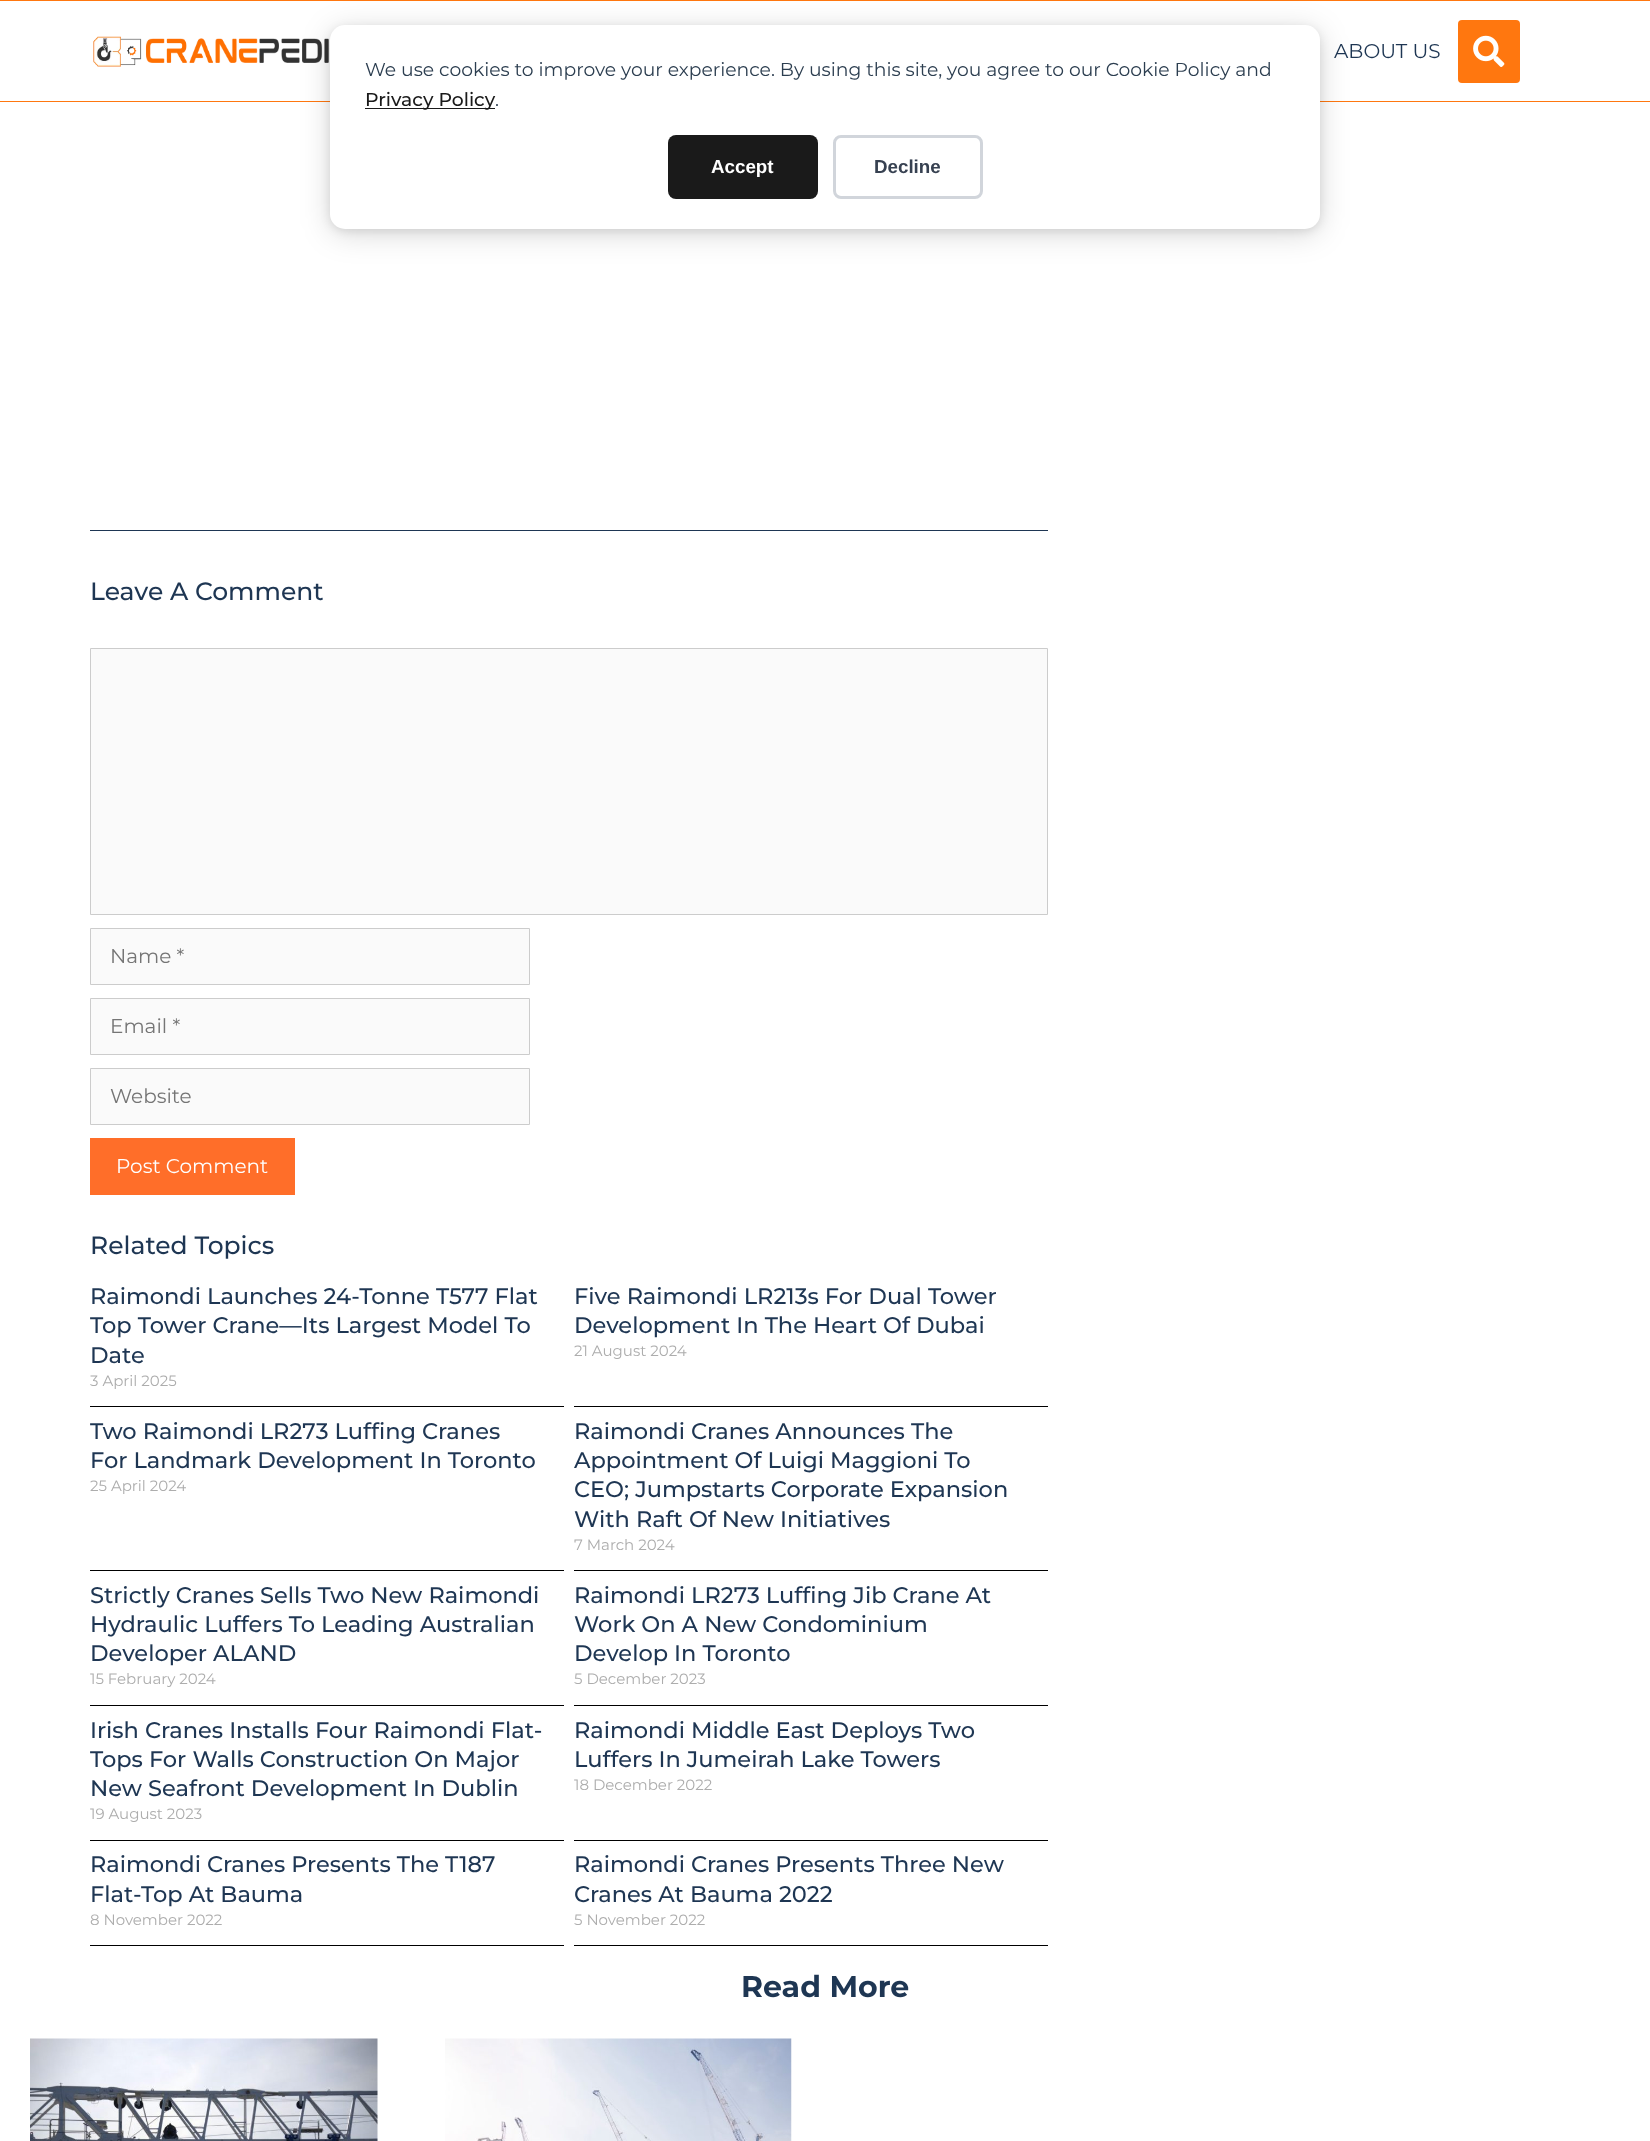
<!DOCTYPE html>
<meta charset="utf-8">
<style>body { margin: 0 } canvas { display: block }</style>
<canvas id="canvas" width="1650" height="2141"></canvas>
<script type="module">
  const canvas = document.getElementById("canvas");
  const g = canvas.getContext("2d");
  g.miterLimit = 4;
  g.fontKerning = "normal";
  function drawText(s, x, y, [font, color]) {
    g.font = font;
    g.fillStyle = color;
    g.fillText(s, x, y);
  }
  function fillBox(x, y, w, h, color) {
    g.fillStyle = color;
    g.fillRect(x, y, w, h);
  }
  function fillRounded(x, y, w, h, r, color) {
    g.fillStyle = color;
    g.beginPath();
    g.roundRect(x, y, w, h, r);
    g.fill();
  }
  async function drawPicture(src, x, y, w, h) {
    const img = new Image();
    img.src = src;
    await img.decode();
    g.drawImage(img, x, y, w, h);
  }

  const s1 = ["20px Montserrat", "#1E3653"];
  const s2 = ["18.75px Montserrat", "#2C3E50"];
  const s3 = ["500 18.75px Montserrat", "#1A1A1A"];
  const s4 = ["bold 18.75px Liberation Sans", "#FFFFFF"];
  const s5 = ["bold 18.75px Liberation Sans", "#374151"];
  const s6 = ["500 25px Montserrat", "#1E3653"];
  const s7 = ["20px Montserrat", "#757575"];
  const s8 = ["20px Montserrat", "#FFFFFF"];
  const s9 = ["500 22.5px Montserrat", "#1E3653"];
  const s10 = ["15px Montserrat", "#ADADAD"];
  const s11 = ["bold 30px Montserrat", "#1E3653"];

  fillBox(0, 0, 1650, 2141, "#FFFFFF");
  fillBox(0, 0, 1650, 1, "#FF770F");
  fillBox(0, 101, 1650, 1, "#FF770F");
  await drawPicture("pic1.png", 93, 36, 236, 31);
  drawText("ABOUT US", 1334, 58, s1);
  fillRounded(1458, 20, 62, 63, 4, "#FF770F");
  await drawPicture("pic2.png", 1473, 35, 32, 32);
  g.fillStyle = "rgba(0, 0, 0, 0.1)";
  g.filter = "blur(5px)";
  g.beginPath();
  g.roundRect(330, 28, 990, 203, 15);
  g.fill();
  g.filter = "none";
  g.fillStyle = "rgba(0, 0, 0, 0.15)";
  g.filter = "blur(15px)";
  g.beginPath();
  g.roundRect(330, 30, 990, 204, 15);
  g.fill();
  g.filter = "none";
  fillRounded(330, 25, 990, 204, 15, "#FFFFFF");
  drawText("We use cookies to improve your experience. By using this site, you agree to our Cookie Policy and", 365, 76, s2);
  fillBox(365, 108, 130, 1, "#1A1A1A");
  drawText("Privacy Policy", 365, 106, s3);
  drawText(".", 495, 106, s2);
  fillRounded(668, 135, 150, 64, 8, "#1A1A1A");
  drawText("Accept", 711, 173, s4);
  g.beginPath();
  g.roundRect(834.5, 136.5, 147, 61, 6.5);
  g.strokeStyle = "#D1D5DB";
  g.lineWidth = 3;
  g.stroke();
  drawText("Decline", 874, 173, s5);
  fillBox(90, 530, 958, 1, "#1E3653");
  drawText("Leave A Comment", 90, 600, s6);
  g.fillStyle = "#FAFAFA";
  g.beginPath();
  g.rect(90.5, 648.5, 957, 266);
  g.fill();
  g.strokeStyle = "#CCCCCC";
  g.lineWidth = 1;
  g.stroke();
  g.beginPath();
  g.rect(90.5, 928.5, 439, 56);
  g.fill();
  g.stroke();
  drawText("Name *", 110, 963, s7);
  g.fillStyle = "#FAFAFA";
  g.beginPath();
  g.rect(90.5, 998.5, 439, 56);
  g.fill();
  g.stroke();
  drawText("Email *", 110, 1033, s7);
  g.fillStyle = "#FAFAFA";
  g.beginPath();
  g.rect(90.5, 1068.5, 439, 56);
  g.fill();
  g.stroke();
  drawText("Website", 110, 1103, s7);
  fillBox(90, 1138, 205, 57, "#FF6E29");
  drawText("Post Comment", 116, 1173, s8);
  drawText("Related Topics", 90, 1254, s6);
  fillBox(90, 1406, 474, 1, "#000000");
  drawText("Raimondi Launches 24-Tonne T577 Flat", 90, 1304, s9);
  drawText("Top Tower Crane—Its Largest Model To", 90, 1333, s9);
  drawText("Date", 90, 1363, s9);
  drawText("3 April 2025", 90, 1386, s10);
  fillBox(574, 1406, 474, 1, "#000000");
  drawText("Five Raimondi LR213s For Dual Tower", 574, 1304, s9);
  drawText("Development In The Heart Of Dubai", 574, 1333, s9);
  drawText("21 August 2024", 574, 1356, s10);
  fillBox(90, 1570, 474, 1, "#000000");
  drawText("Two Raimondi LR273 Luffing Cranes", 90, 1439, s9);
  drawText("For Landmark Development In Toronto", 90, 1468, s9);
  drawText("25 April 2024", 90, 1491, s10);
  fillBox(574, 1570, 474, 1, "#000000");
  drawText("Raimondi Cranes Announces The", 574, 1439, s9);
  drawText("Appointment Of Luigi Maggioni To", 574, 1468, s9);
  drawText("CEO; Jumpstarts Corporate Expansion", 574, 1497, s9);
  drawText("With Raft Of New Initiatives", 574, 1527, s9);
  drawText("7 March 2024", 574, 1550, s10);
  fillBox(90, 1705, 474, 1, "#000000");
  drawText("Strictly Cranes Sells Two New Raimondi", 90, 1603, s9);
  drawText("Hydraulic Luffers To Leading Australian", 90, 1632, s9);
  drawText("Developer ALAND", 90, 1661, s9);
  drawText("15 February 2024", 90, 1684, s10);
  fillBox(574, 1705, 474, 1, "#000000");
  drawText("Raimondi LR273 Luffing Jib Crane At", 574, 1603, s9);
  drawText("Work On A New Condominium", 574, 1632, s9);
  drawText("Develop In Toronto", 574, 1661, s9);
  drawText("5 December 2023", 574, 1684, s10);
  fillBox(90, 1840, 474, 1, "#000000");
  drawText("Irish Cranes Installs Four Raimondi Flat-", 90, 1738, s9);
  drawText("Tops For Walls Construction On Major", 90, 1767, s9);
  drawText("New Seafront Development In Dublin", 90, 1796, s9);
  drawText("19 August 2023", 90, 1819, s10);
  fillBox(574, 1840, 474, 1, "#000000");
  drawText("Raimondi Middle East Deploys Two", 574, 1738, s9);
  drawText("Luffers In Jumeirah Lake Towers", 574, 1767, s9);
  drawText("18 December 2022", 574, 1790, s10);
  fillBox(90, 1945, 474, 1, "#000000");
  drawText("Raimondi Cranes Presents The T187", 90, 1872, s9);
  drawText("Flat-Top At Bauma", 90, 1902, s9);
  drawText("8 November 2022", 90, 1925, s10);
  fillBox(574, 1945, 474, 1, "#000000");
  drawText("Raimondi Cranes Presents Three New", 574, 1872, s9);
  drawText("Cranes At Bauma 2022", 574, 1902, s9);
  drawText("5 November 2022", 574, 1925, s10);
  drawText("Read More", 741, 1997, s11);
  await drawPicture("pic3.png", 30, 2038, 348, 103);
  await drawPicture("pic4.png", 445, 2038, 347, 103);
</script>
